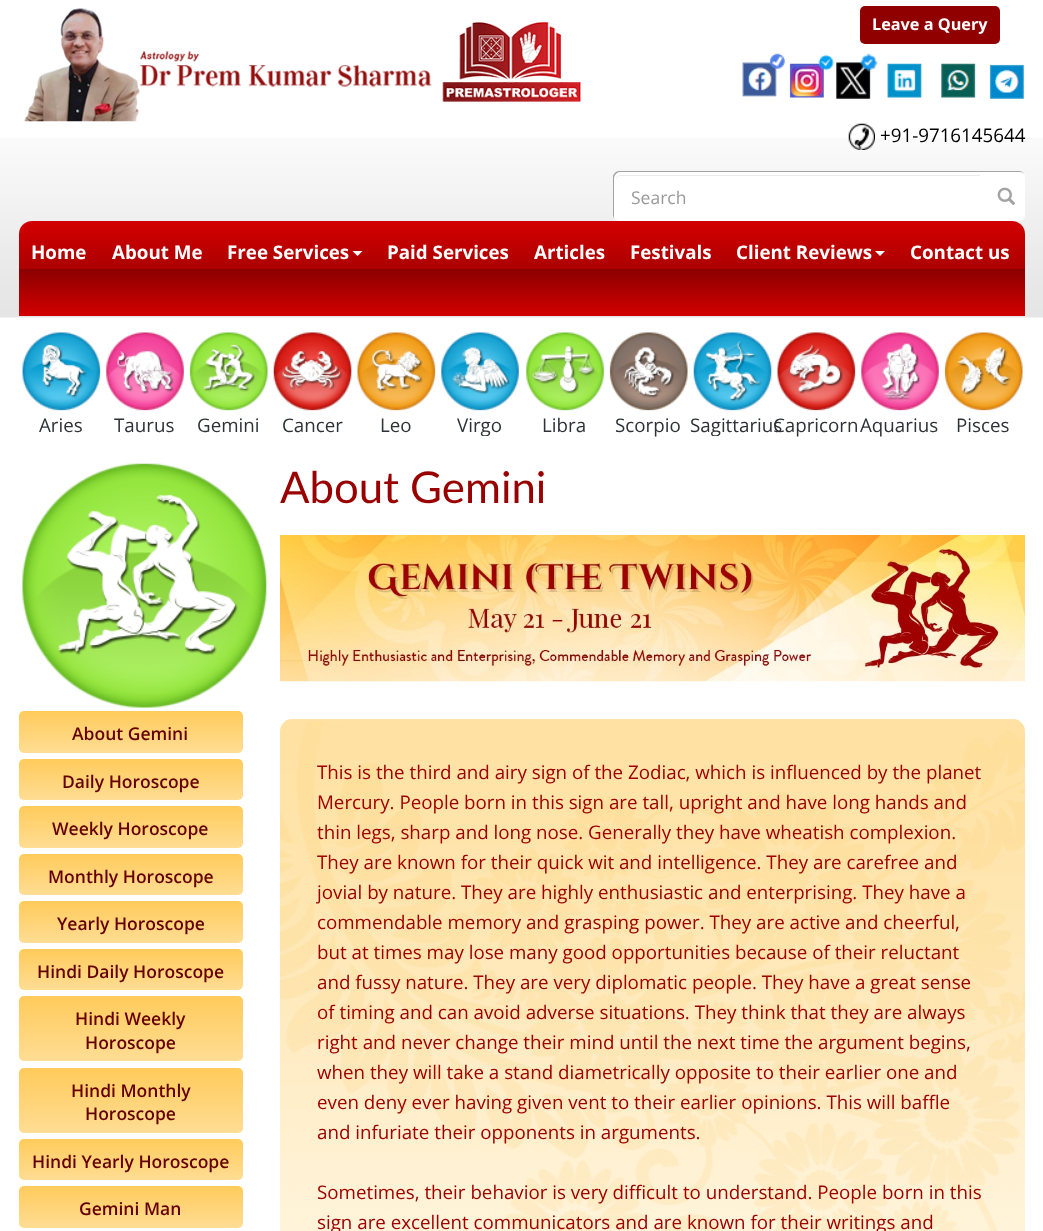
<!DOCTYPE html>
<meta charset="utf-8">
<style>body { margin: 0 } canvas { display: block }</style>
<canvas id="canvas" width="1043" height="1231"></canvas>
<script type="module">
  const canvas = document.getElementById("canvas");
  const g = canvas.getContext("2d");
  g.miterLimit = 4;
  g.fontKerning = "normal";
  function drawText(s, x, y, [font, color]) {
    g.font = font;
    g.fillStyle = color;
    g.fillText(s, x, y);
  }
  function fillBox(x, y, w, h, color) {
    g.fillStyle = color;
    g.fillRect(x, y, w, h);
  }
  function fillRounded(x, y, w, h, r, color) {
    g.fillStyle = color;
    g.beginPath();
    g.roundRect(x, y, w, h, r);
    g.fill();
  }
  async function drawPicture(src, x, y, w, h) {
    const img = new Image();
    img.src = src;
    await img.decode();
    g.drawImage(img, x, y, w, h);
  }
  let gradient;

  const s1 = ["bold 16.25px Open Sans", "#FFFFFF"];
  const s2 = ["18.75px Open Sans", "#000000"];
  const s3 = ["17.5px Open Sans", "#999999"];
  const s4 = ["bold 18.75px Open Sans", "#FFFFFF"];
  const s5 = ["18.75px Open Sans", "#2E3136"];
  const s6 = ["600 17.5px Open Sans", "#640000"];
  const s7 = ["43.75px Lato", "#990000"];
  const s8 = ["18.75px Open Sans", "#A00000"];

  fillBox(0, 0, 1043, 1231, "#FFFFFF");
  await drawPicture("pic1.png", 0, 138, 1043, 180);
  await drawPicture("pic2.png", 24, 8, 557, 114);
  fillRounded(860, 6, 140, 38, 5, "#900000");
  drawText("Leave a Query", 872, 30, s1);
  await drawPicture("pic3.png", 742, 53, 43, 44);
  await drawPicture("pic4.png", 789, 54, 45, 44);
  await drawPicture("pic5.png", 836, 53, 42, 46);
  await drawPicture("pic6.png", 887, 63, 35, 35);
  await drawPicture("pic7.png", 941, 63, 35, 35);
  await drawPicture("pic8.png", 989, 64, 35, 35);
  await drawPicture("pic9.png", 848, 123, 27, 27);
  drawText("+91-9716145644", 880, 142, s2);
  fillRounded(613, 171, 412, 50, 6, "#FFFFFF");
  g.fillStyle = "#A3A3A3";
  g.beginPath();
  g.moveTo(620, 172);
  g.lineTo(1020, 172);
  g.bezierCurveTo(1022, 172, 1023, 173, 1024, 174);
  g.bezierCurveTo(1023, 172, 1021, 171, 1019, 171);
  g.lineTo(619, 171);
  g.bezierCurveTo(616, 171, 613, 174, 613, 177);
  g.lineTo(613, 215);
  g.bezierCurveTo(613, 217, 614, 218, 615, 219);
  g.bezierCurveTo(614, 219, 614, 217, 614, 216);
  g.lineTo(614, 179);
  g.bezierCurveTo(614, 175, 617, 172, 620, 172);
  g.closePath();
  g.fill();
  g.fillStyle = "#ECECEC";
  g.beginPath();
  g.moveTo(621, 176);
  g.lineTo(980, 176);
  g.lineTo(980, 175);
  g.lineTo(621, 175);
  g.bezierCurveTo(618, 175, 616, 177, 616, 180);
  g.lineTo(616, 181);
  g.bezierCurveTo(616, 178, 618, 176, 621, 176);
  g.closePath();
  g.fill();
  drawText("Search", 631, 204, s3);
  await drawPicture("pic10.png", 997, 187, 18, 18);
  gradient = g.createLinearGradient(522, 221, 522, 316);
  gradient.addColorStop(0, "#D30000");
  gradient.addColorStop(0.5, "#AC0000");
  gradient.addColorStop(0.51, "#8C0000");
  gradient.addColorStop(1, "#D30000");
  g.fillStyle = gradient;
  g.beginPath();
  g.roundRect(19, 221, 1006, 95, [13, 13, 0, 0]);
  g.fill();
  drawText("Home", 31, 259, s4);
  drawText("About Me", 112, 259, s4);
  drawText("Free Services", 227, 259, s4);
  g.beginPath();
  g.moveTo(352.5, 251);
  g.lineTo(362.5, 251);
  g.lineTo(357.5, 256);
  g.closePath();
  g.fill();
  drawText("Paid Services", 387, 259, s4);
  drawText("Articles", 534, 259, s4);
  drawText("Festivals", 630, 259, s4);
  drawText("Client Reviews", 736, 259, s4);
  g.beginPath();
  g.moveTo(875, 251);
  g.lineTo(885, 251);
  g.lineTo(880, 256);
  g.closePath();
  g.fill();
  drawText("Contact us", 910, 259, s4);
  await drawPicture("pic11.png", 22, 332, 79, 79);
  drawText("Aries", 39, 432, s5);
  await drawPicture("pic12.png", 106, 332, 78, 79);
  drawText("Taurus", 114, 432, s5);
  await drawPicture("pic13.png", 189, 332, 79, 79);
  drawText("Gemini", 197, 432, s5);
  await drawPicture("pic14.png", 273, 332, 79, 79);
  drawText("Cancer", 282, 432, s5);
  await drawPicture("pic15.png", 357, 332, 79, 79);
  drawText("Leo", 380, 432, s5);
  await drawPicture("pic16.png", 441, 332, 78, 79);
  g.save();
  g.beginPath();
  g.rect(0, 330, 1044, 106);
  g.clip();
  drawText("Virgo", 457, 432, s5);
  g.restore();
  await drawPicture("pic17.png", 526, 332, 78, 79);
  drawText("Libra", 542, 432, s5);
  await drawPicture("pic18.png", 609, 332, 79, 79);
  drawText("Scorpio", 615, 432, s5);
  await drawPicture("pic19.png", 693, 332, 79, 79);
  g.save();
  g.beginPath();
  g.rect(0, 330, 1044, 106);
  g.clip();
  drawText("Sagittarius", 690, 432, s5);
  g.restore();
  await drawPicture("pic20.png", 777, 332, 79, 79);
  drawText("Capricorn", 773, 432, s5);
  await drawPicture("pic21.png", 861, 332, 78, 79);
  drawText("Aquarius", 860, 432, s5);
  await drawPicture("pic22.png", 944, 332, 79, 79);
  drawText("Pisces", 956, 432, s5);
  await drawPicture("pic23.png", 22, 463, 245, 245);
  gradient = g.createLinearGradient(131, 711, 131, 753);
  gradient.addColorStop(0, "#FFCB5B");
  gradient.addColorStop(1, "#FFDD94");
  g.fillStyle = gradient;
  g.beginPath();
  g.roundRect(19, 711, 224, 42, 5);
  g.fill();
  drawText("About Gemini", 72, 740, s6);
  gradient = g.createLinearGradient(131, 759, 131, 800);
  gradient.addColorStop(0, "#FFCB5B");
  gradient.addColorStop(1, "#FFDD94");
  g.fillStyle = gradient;
  g.beginPath();
  g.roundRect(19, 759, 224, 41, 5);
  g.fill();
  drawText("Daily Horoscope", 62, 788, s6);
  gradient = g.createLinearGradient(131, 806, 131, 848);
  gradient.addColorStop(0, "#FFCB5B");
  gradient.addColorStop(1, "#FFDD94");
  g.fillStyle = gradient;
  g.beginPath();
  g.roundRect(19, 806, 224, 42, 5);
  g.fill();
  drawText("Weekly Horoscope", 52, 835, s6);
  gradient = g.createLinearGradient(131, 854, 131, 895);
  gradient.addColorStop(0, "#FFCB5B");
  gradient.addColorStop(1, "#FFDD94");
  g.fillStyle = gradient;
  g.beginPath();
  g.roundRect(19, 854, 224, 41, 5);
  g.fill();
  drawText("Monthly Horoscope", 48, 883, s6);
  gradient = g.createLinearGradient(131, 901, 131, 943);
  gradient.addColorStop(0, "#FFCB5B");
  gradient.addColorStop(1, "#FFDD94");
  g.fillStyle = gradient;
  g.beginPath();
  g.roundRect(19, 901, 224, 42, 5);
  g.fill();
  drawText("Yearly Horoscope", 57, 930, s6);
  gradient = g.createLinearGradient(131, 949, 131, 990);
  gradient.addColorStop(0, "#FFCB5B");
  gradient.addColorStop(1, "#FFDD94");
  g.fillStyle = gradient;
  g.beginPath();
  g.roundRect(19, 949, 224, 41, 5);
  g.fill();
  drawText("Hindi Daily Horoscope", 37, 978, s6);
  gradient = g.createLinearGradient(131, 996, 131, 1061);
  gradient.addColorStop(0, "#FFCB5B");
  gradient.addColorStop(1, "#FFDD94");
  g.fillStyle = gradient;
  g.beginPath();
  g.roundRect(19, 996, 224, 65, 5);
  g.fill();
  drawText("Hindi Weekly", 75, 1025, s6);
  drawText("Horoscope", 85, 1049, s6);
  gradient = g.createLinearGradient(131, 1068, 131, 1133);
  gradient.addColorStop(0, "#FFCB5B");
  gradient.addColorStop(1, "#FFDD94");
  g.fillStyle = gradient;
  g.beginPath();
  g.roundRect(19, 1068, 224, 65, 5);
  g.fill();
  drawText("Hindi Monthly", 71, 1097, s6);
  drawText("Horoscope", 85, 1120, s6);
  gradient = g.createLinearGradient(131, 1139, 131, 1180);
  gradient.addColorStop(0, "#FFCB5B");
  gradient.addColorStop(1, "#FFDD94");
  g.fillStyle = gradient;
  g.beginPath();
  g.roundRect(19, 1139, 224, 41, 5);
  g.fill();
  drawText("Hindi Yearly Horoscope", 32, 1168, s6);
  gradient = g.createLinearGradient(131, 1186, 131, 1228);
  gradient.addColorStop(0, "#FFCB5B");
  gradient.addColorStop(1, "#FFDD94");
  g.fillStyle = gradient;
  g.beginPath();
  g.roundRect(19, 1186, 224, 42, 5);
  g.fill();
  drawText("Gemini Man", 79, 1215, s6);
  drawText("About Gemini", 280, 503, s7);
  await drawPicture("pic24.png", 280, 535, 745, 147);
  await drawPicture("pic25.png", 280, 718, 745, 513);
  drawText("This is the third and airy sign of the Zodiac, which is influenced by the planet", 317, 779, s8);
  drawText("Mercury. People born in this sign are tall, upright and have long hands and", 317, 809, s8);
  drawText("thin legs, sharp and long nose. Generally they have wheatish complexion.", 317, 839, s8);
  drawText("They are known for their quick wit and intelligence. They are carefree and", 317, 869, s8);
  drawText("jovial by nature. They are highly enthusiastic and enterprising. They have a", 317, 899, s8);
  drawText("commendable memory and grasping power. They are active and cheerful,", 317, 929, s8);
  drawText("but at times may lose many good opportunities because of their reluctant", 317, 959, s8);
  drawText("and fussy nature. They are very diplomatic people. They have a great sense", 317, 989, s8);
  drawText("of timing and can avoid adverse situations. They think that they are always", 317, 1019, s8);
  drawText("right and never change their mind until the next time the argument begins,", 317, 1049, s8);
  drawText("when they will take a stand diametrically opposite to their earlier one and", 317, 1079, s8);
  drawText("even deny ever having given vent to their earlier opinions. This will baffle", 317, 1109, s8);
  drawText("and infuriate their opponents in arguments.", 317, 1139, s8);
  drawText("Sometimes, their behavior is very difficult to understand. People born in this", 317, 1199, s8);
  drawText("sign are excellent communicators and are known for their writings and", 317, 1229, s8);
</script>
